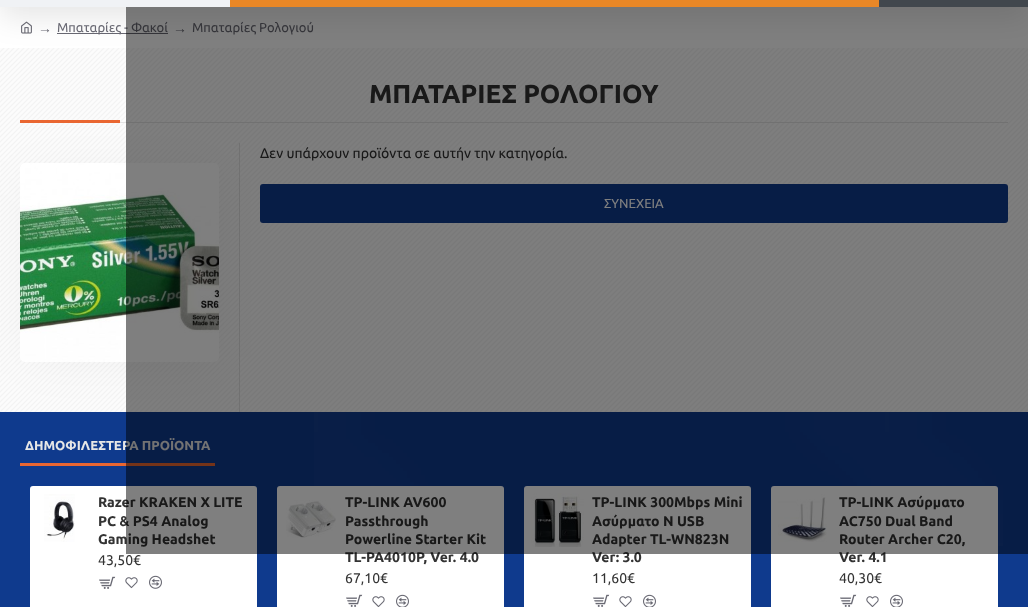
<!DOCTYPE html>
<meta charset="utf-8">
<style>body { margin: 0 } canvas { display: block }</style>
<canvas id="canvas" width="1028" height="607"></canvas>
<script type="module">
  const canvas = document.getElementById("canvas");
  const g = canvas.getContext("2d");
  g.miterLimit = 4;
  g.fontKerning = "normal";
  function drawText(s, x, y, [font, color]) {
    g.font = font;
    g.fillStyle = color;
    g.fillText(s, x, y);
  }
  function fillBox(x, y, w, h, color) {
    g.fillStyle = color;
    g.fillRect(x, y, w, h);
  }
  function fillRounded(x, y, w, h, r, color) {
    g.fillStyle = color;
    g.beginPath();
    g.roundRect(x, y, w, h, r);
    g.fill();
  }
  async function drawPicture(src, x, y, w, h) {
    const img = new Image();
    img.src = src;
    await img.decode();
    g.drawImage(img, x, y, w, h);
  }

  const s1 = ["13px Ubuntu", "#696973"];
  const s2 = ["14px Liberation Serif", "#696973"];
  const s3 = ["bold 26px Ubuntu", "#333333"];
  const s4 = ["14px Ubuntu", "#333333"];
  const s5 = ["13px Ubuntu", "#FFFFFF"];
  const s6 = ["bold 13px Ubuntu", "#E6E6E6"];
  const s7 = ["bold 14px Ubuntu", "#333333"];

  fillBox(0, 0, 1028, 607, "#F8F8F8");
  await drawPicture("pic1.png", 0, 48, 1028, 364);
  fillBox(0, 7, 1028, 41, "#FFFFFF");
  await drawPicture("pic2.png", 21, 21, 11, 13);
  fillBox(57, 33, 111, 1, "#696973");
  g.fillStyle = "rgba(0, 0, 0, 0.1)";
  g.filter = "blur(15px)";
  g.beginPath();
  g.rect(0, -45, 1028, 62);
  g.fill();
  g.filter = "none";
  fillBox(0, 0, 230, 7, "#F0F2F5");
  drawText("Μπαταρίες - Φακοί", 57, 32, s1);
  drawText("→", 173, 33, s2);
  drawText("Μπαταρίες Ρολογιού", 192, 32, s1);
  fillBox(120, 122, 888, 1, "#E2E2E2");
  drawText("ΜΠΑΤΑΡΙΕΣ ΡΟΛΟΓΙΟΥ", 369, 103, s3);
  fillBox(239, 143, 1, 269, "#E2E2E2");
  fillBox(20, 120, 100, 3, "#E96631");
  g.fillStyle = "rgba(0, 0, 0, 0.05)";
  g.filter = "blur(25px)";
  g.beginPath();
  g.rect(30, 178, 179, 179);
  g.fill();
  g.filter = "none";
  await drawPicture("pic3.png", 20, 163, 199, 199);
  drawText("Δεν υπάρχουν προϊόντα σε αυτήν την κατηγορία.", 260, 158, s4);
  fillRounded(260, 184, 748, 39, 3, "#0F3A8D");
  drawText("ΣΥΝΕΧΕΙΑ", 604, 208, s5);
  fillBox(0, 412, 1028, 195, "#0F3A8D");
  await drawPicture("pic4.png", 314, 412, 689, 134);
  fillBox(20, 463, 195, 3, "#E96631");
  drawText("ΔΗΜΟΦΙΛΕΣΤΕΡΑ ΠΡΟΪΟΝΤΑ", 25, 450, s6);
  fillRounded(30, 486, 227, 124, 3, "#FFFFFF");
  drawText("Razer KRAKEN X LITE", 98, 507, s7);
  drawText("PC & PS4 Analog", 98, 526, s7);
  drawText("Gaming Headshet", 98, 544, s7);
  fillRounded(277, 486, 227, 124, 3, "#FFFFFF");
  await drawPicture("pic9.png", 286, 500, 50, 38);
  drawText("TP-LINK AV600", 345, 507, s7);
  drawText("Passthrough", 345, 526, s7);
  drawText("Powerline Starter Kit", 345, 544, s7);
  drawText("TL-PA4010P, Ver. 4.0", 345, 562, s7);
  fillRounded(524, 486, 227, 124, 3, "#FFFFFF");
  await drawPicture("pic12.png", 531, 493, 53, 54);
  drawText("TP-LINK 300Mbps Mini", 592, 507, s7);
  drawText("Ασύρματο N USB", 592, 526, s7);
  drawText("Adapter TL-WN823N", 592, 544, s7);
  drawText("Ver: 3.0", 592, 562, s7);
  fillRounded(771, 486, 227, 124, 3, "#FFFFFF");
  await drawPicture("pic13.png", 778, 494, 49, 48);
  drawText("TP-LINK Ασύρματο", 839, 507, s7);
  drawText("AC750 Dual Band", 839, 526, s7);
  drawText("Router Archer C20,", 839, 544, s7);
  drawText("Ver. 4.1", 839, 562, s7);
  fillBox(126, 7, 902, 547, "rgba(0, 0, 0, 0.5)");
  fillBox(230, 0, 649, 7, "#E88727");
  fillBox(879, 0, 149, 7, "#41474D");
  drawText("→", 38, 33, s2);
  await drawPicture("pic5.png", 44, 494, 31, 48);
  drawText("43,50€", 98, 565, s4);
  await drawPicture("pic6.png", 99, 576, 17, 13);
  await drawPicture("pic7.png", 125, 577, 13, 12);
  await drawPicture("pic8.png", 149, 575, 13, 14);
  drawText("67,10€", 345, 583, s4);
  await drawPicture("pic6.png", 346, 594, 17, 13);
  await drawPicture("pic10.png", 372, 596, 13, 11);
  await drawPicture("pic11.png", 396, 594, 13, 13);
  drawText("11,60€", 592, 583, s4);
  await drawPicture("pic6.png", 593, 594, 17, 13);
  await drawPicture("pic10.png", 619, 596, 13, 11);
  await drawPicture("pic11.png", 643, 594, 13, 13);
  drawText("40,30€", 839, 583, s4);
  await drawPicture("pic6.png", 840, 594, 17, 13);
  await drawPicture("pic10.png", 866, 596, 13, 11);
  await drawPicture("pic11.png", 890, 594, 13, 13);
</script>
